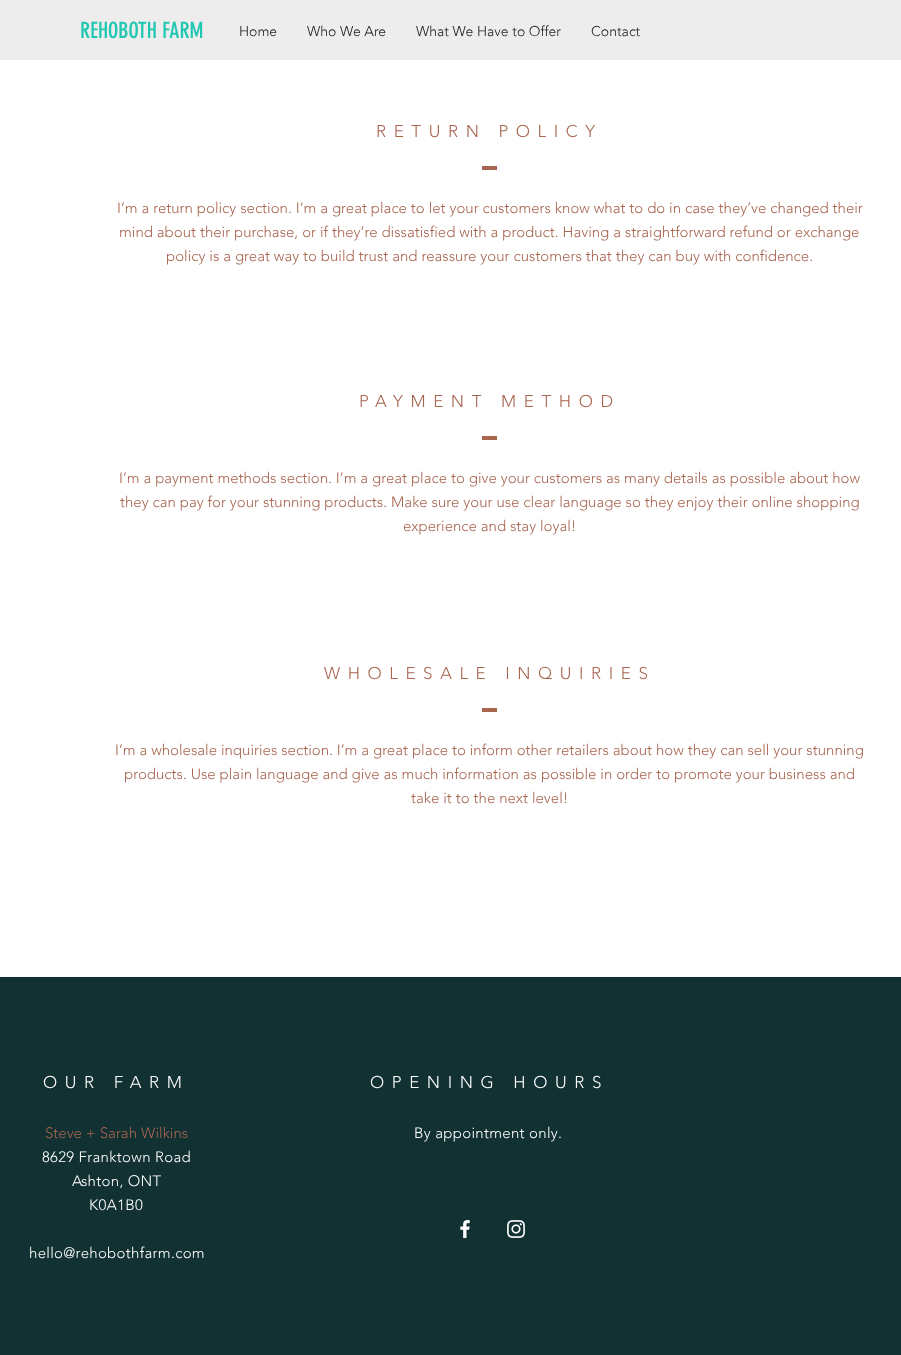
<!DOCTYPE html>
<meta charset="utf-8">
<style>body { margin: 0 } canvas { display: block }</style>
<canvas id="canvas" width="901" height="1355"></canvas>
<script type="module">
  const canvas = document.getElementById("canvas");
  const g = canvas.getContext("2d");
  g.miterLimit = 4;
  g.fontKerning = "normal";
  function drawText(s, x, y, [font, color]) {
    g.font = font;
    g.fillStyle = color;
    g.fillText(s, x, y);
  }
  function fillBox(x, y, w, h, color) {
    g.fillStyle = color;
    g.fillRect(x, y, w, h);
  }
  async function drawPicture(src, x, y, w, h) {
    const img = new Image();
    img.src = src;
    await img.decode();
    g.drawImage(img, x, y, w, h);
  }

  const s1 = ["22px 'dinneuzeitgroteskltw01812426'", "#22C7B1"];
  const s2 = ["300 14px 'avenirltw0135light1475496'", "#242323"];
  const s3 = ["300 17px 'avenirltw0135light1475496'", "#A86550"];
  const s4 = ["300 15px 'avenirltw0135light1475496'", "#A86550"];
  const s5 = ["300 17px 'avenirltw0135light1475496'", "#FFFFFF"];
  const s6 = ["300 15px 'avenirltw0135light1475496'", "#FFFFFF"];

  fillBox(0, 0, 901, 1355, "#FFFFFF");
  fillBox(0, 0, 901, 60, "#EDEDEE");
  drawText("REHOBOTH FARM", 80, 38, s1);
  drawText("Home", 239, 36, s2);
  drawText("Who We Are", 307, 36, s2);
  drawText("What We Have to Offer", 416, 36, s2);
  drawText("Contact", 591, 36, s2);
  g.letterSpacing = "7.6px";
  drawText("RETURN POLICY", 376, 137, s3);
  fillBox(482, 166, 15, 4, "#A86550");
  g.letterSpacing = "0px";
  drawText("I’m a return policy section. I’m a great place to let your customers know what to do in case they’ve changed their", 117, 213, s4);
  drawText("mind about their purchase, or if they’re dissatisfied with a product. Having a straightforward refund or exchange", 119, 237, s4);
  drawText("policy is a great way to build trust and reassure your customers that they can buy with confidence.", 166, 261, s4);
  g.letterSpacing = "7.6px";
  drawText("PAYMENT METHOD", 359, 407, s3);
  fillBox(482, 436, 15, 4, "#A86550");
  g.letterSpacing = "0px";
  drawText("I’m a payment methods section. I’m a great place to give your customers as many details as possible about how", 119, 483, s4);
  drawText("they can pay for your stunning products. Make sure your use clear language so they enjoy their online shopping", 120, 507, s4);
  drawText("experience and stay loyal!", 403, 531, s4);
  g.letterSpacing = "7.6px";
  drawText("WHOLESALE INQUIRIES", 324, 679, s3);
  fillBox(482, 708, 15, 4, "#A86550");
  g.letterSpacing = "0px";
  drawText("I’m a wholesale inquiries section. I’m a great place to inform other retailers about how they can sell your stunning", 115, 755, s4);
  drawText("products. Use plain language and give as much information as possible in order to promote your business and", 124, 779, s4);
  drawText("take it to the next level!", 411, 803, s4);
  fillBox(0, 977, 901, 378, "#123132");
  g.letterSpacing = "7.6px";
  drawText("OUR FARM", 43, 1088, s5);
  drawText("OPENING HOURS", 370, 1088, s5);
  g.letterSpacing = "0px";
  drawText("Steve + Sarah Wilkins", 45, 1138, s4);
  g.letterSpacing = "0.3px";
  drawText("8629 Franktown Road", 42, 1162, s6);
  drawText("Ashton, ONT", 72, 1186, s6);
  drawText("K0A1B0", 89, 1210, s6);
  drawText("hello@rehobothfarm.com", 29, 1258, s6);
  drawText("By appointment only.", 414, 1138, s6);
  await drawPicture("pic1.png", 460, 1219, 10, 20);
  await drawPicture("pic2.png", 507, 1220, 18, 18);
</script>
